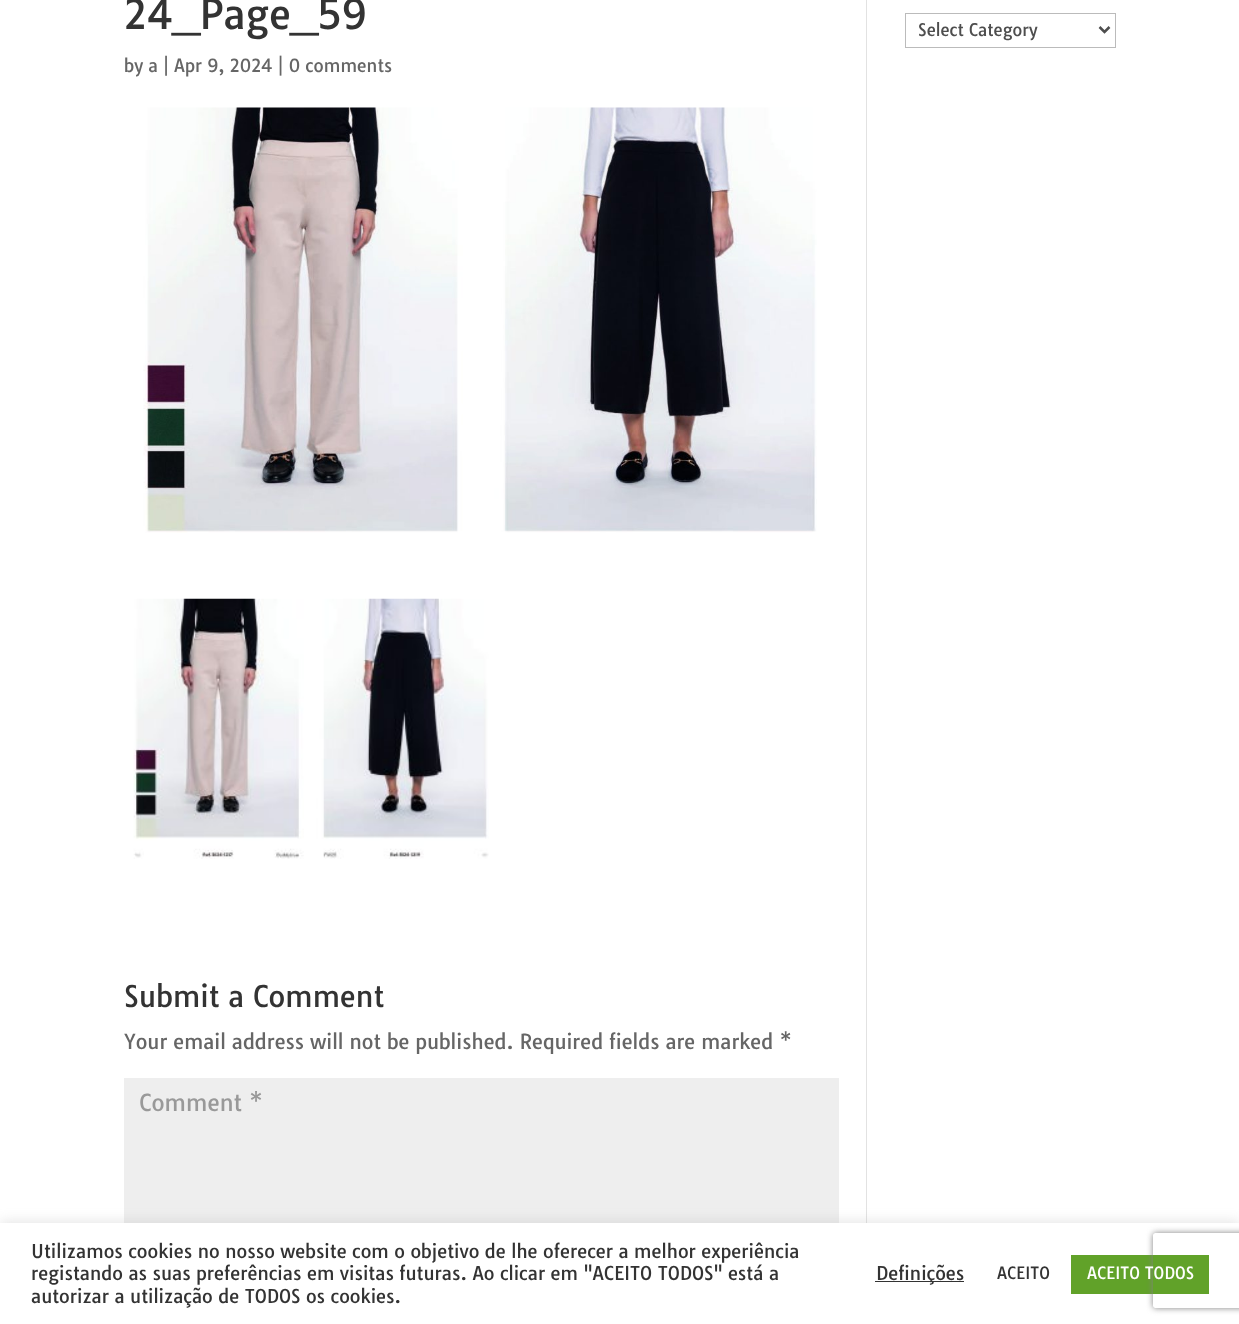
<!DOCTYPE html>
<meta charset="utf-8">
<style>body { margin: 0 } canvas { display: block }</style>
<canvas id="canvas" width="1239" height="1324"></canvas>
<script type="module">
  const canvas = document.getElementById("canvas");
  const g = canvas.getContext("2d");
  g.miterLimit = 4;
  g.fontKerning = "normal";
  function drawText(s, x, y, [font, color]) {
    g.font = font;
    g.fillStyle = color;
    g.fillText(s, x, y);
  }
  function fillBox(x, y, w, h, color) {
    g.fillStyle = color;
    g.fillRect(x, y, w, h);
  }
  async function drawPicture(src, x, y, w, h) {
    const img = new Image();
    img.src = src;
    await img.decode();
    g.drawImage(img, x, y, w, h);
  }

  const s1 = ["40px Tauri", "#333333"];
  const s2 = ["17.5px Tauri", "#666666"];
  const s3 = ["28.75px Tauri", "#333333"];
  const s4 = ["20px Tauri", "#666666"];
  const s5 = ["22.5px Tauri", "#999999"];
  const s6 = ["16.75px Tauri", "#4E4E4E"];
  const s7 = ["18.35px Tauri", "#333333"];
  const s8 = ["16.25px Tauri", "#333333"];
  const s9 = ["16.25px Tauri", "#FFFFFF"];

  fillBox(0, 0, 1239, 1324, "#FFFFFF");
  drawText("24_Page_59", 124, 29, s1);
  drawText("by a | Apr 9, 2024 | 0 comments", 124, 72, s2);
  await drawPicture("pic1.png", 143, 107, 674, 426);
  await drawPicture("pic2.png", 133, 598, 356, 261);
  drawText("Submit a Comment", 124, 1007, s3);
  drawText("Your email address will not be published. Required fields are marked *", 124, 1049, s4);
  fillBox(124, 1078, 715, 145, "#EEEEEE");
  drawText("Comment *", 139, 1111, s5);
  g.strokeStyle = "#BBBBBB";
  g.strokeRect(905.5, 13.5, 210, 34);
  g.beginPath();
  g.moveTo(1099.5, 27);
  g.lineTo(1104.5, 32);
  g.lineTo(1109.5, 27);
  g.strokeStyle = "#4E4E4E";
  g.lineWidth = 2.5;
  g.stroke();
  drawText("Select Category", 918, 36, s6);
  fillBox(866, 0, 1, 1223, "#E2E2E2");
  g.fillStyle = "rgba(172, 171, 171, 0.3)";
  g.filter = "blur(6px)";
  g.beginPath();
  g.rect(0, 1221, 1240, 103);
  g.fill();
  g.filter = "none";
  fillBox(0, 1223, 1239, 101, "#FFFFFF");
  fillBox(1071, 1255, 138, 39, "#61A229");
  g.save();
  g.beginPath();
  g.moveTo(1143, 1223);
  g.lineTo(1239, 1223);
  g.lineTo(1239, 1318);
  g.lineTo(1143, 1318);
  g.closePath();
  g.moveTo(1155.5, 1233);
  g.lineTo(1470.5, 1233);
  g.bezierCurveTo(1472, 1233, 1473, 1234, 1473, 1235.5);
  g.lineTo(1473, 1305.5);
  g.bezierCurveTo(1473, 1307, 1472, 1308, 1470.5, 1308);
  g.lineTo(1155.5, 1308);
  g.bezierCurveTo(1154, 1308, 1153, 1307, 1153, 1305.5);
  g.lineTo(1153, 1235.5);
  g.bezierCurveTo(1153, 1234, 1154, 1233, 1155.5, 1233);
  g.closePath();
  g.clip("evenodd");
  g.fillStyle = "#808080";
  g.filter = "blur(3px)";
  g.beginPath();
  g.roundRect(1153, 1233, 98, 75, 2.5);
  g.fill();
  g.filter = "none";
  g.restore();
  drawText("Utilizamos cookies no nosso website com o objetivo de lhe oferecer a melhor experiência", 31, 1258, s7);
  drawText("registando as suas preferências em visitas futuras. Ao clicar em \"ACEITO TODOS\" está a", 31, 1280, s7);
  drawText("autorizar a utilização de TODOS os cookies.", 31, 1303, s7);
  fillBox(875, 1281, 89, 1, "#333333");
  drawText("Definições", 876, 1280, s7);
  drawText("ACEITO", 997, 1279, s8);
  drawText("ACEITO TODOS", 1087, 1279, s9);
</script>
